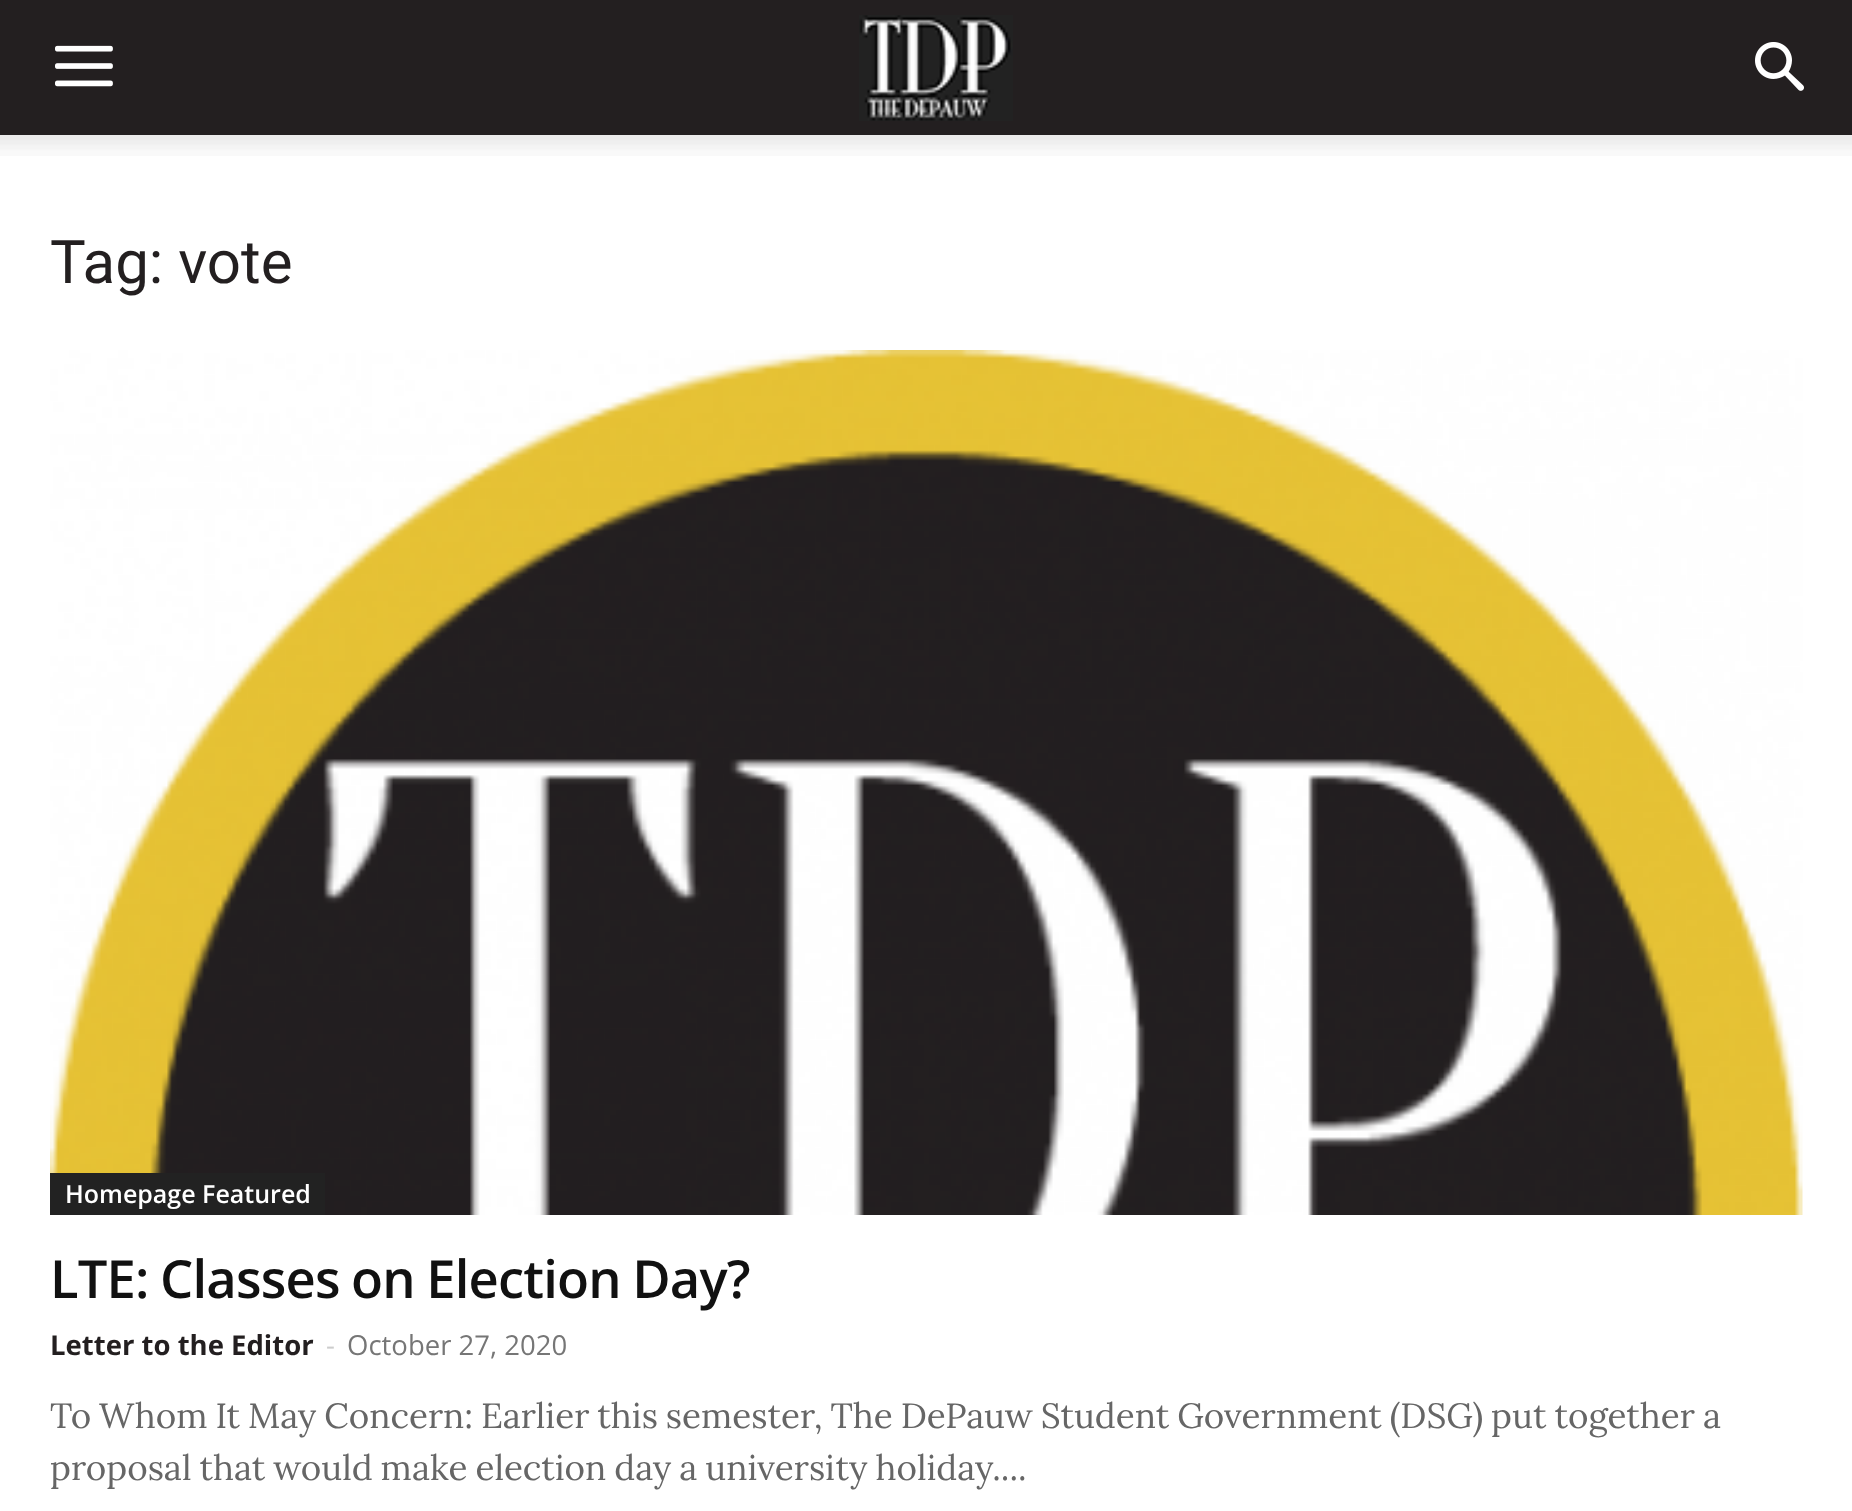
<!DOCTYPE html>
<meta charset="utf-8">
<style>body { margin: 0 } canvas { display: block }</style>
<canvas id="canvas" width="1852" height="1511"></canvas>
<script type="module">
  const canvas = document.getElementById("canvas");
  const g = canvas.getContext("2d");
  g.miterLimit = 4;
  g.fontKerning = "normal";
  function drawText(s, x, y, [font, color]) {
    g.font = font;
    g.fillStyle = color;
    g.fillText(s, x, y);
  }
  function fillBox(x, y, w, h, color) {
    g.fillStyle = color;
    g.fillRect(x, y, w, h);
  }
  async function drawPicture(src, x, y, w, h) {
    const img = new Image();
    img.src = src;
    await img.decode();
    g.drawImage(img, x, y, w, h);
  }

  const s1 = ["60px Roboto", "#231F20"];
  const s2 = ["600 25px Open Sans", "#FFFFFF"];
  const s3 = ["600 52.5px Open Sans", "#111111"];
  const s4 = ["bold 27.5px Open Sans", "#231F20"];
  const s5 = ["27.5px Open Sans", "#CCCCCC"];
  const s6 = ["27.5px Open Sans", "#767676"];
  const s7 = ["35px Lora", "#666666"];

  fillBox(0, 0, 1852, 1511, "#FFFFFF");
  fillBox(0, 0, 1852, 135, "#231F20");
  await drawPicture("pic1.png", 55, 45, 58, 42);
  await drawPicture("pic2.png", 859, 15, 154, 106);
  await drawPicture("pic3.png", 1755, 42, 49, 49);
  await drawPicture("pic4.png", 0, 135, 1852, 21);
  drawText("Tag: vote", 50, 283, s1);
  await drawPicture("pic5.png", 50, 350, 1753, 865);
  fillBox(50, 1173, 275, 42, "#222222");
  drawText("Homepage Featured", 65, 1203, s2);
  g.letterSpacing = "-0.8px";
  g.wordSpacing = "-1.5px";
  drawText("LTE: Classes on Election Day?", 50, 1298, s3);
  g.letterSpacing = "0px";
  g.wordSpacing = "0px";
  drawText("Letter to the Editor", 50, 1355, s4);
  drawText("-", 326, 1355, s5);
  drawText("October 27, 2020", 347, 1355, s6);
  g.wordSpacing = "-1.25px";
  drawText("To Whom It May Concern:", 50, 1428, s7);
  drawText("Earlier this semester, The DePauw Student Government (DSG) put together a", 481, 1428, s7);
  drawText("proposal that would make election day a university holiday....", 50, 1480, s7);
</script>
